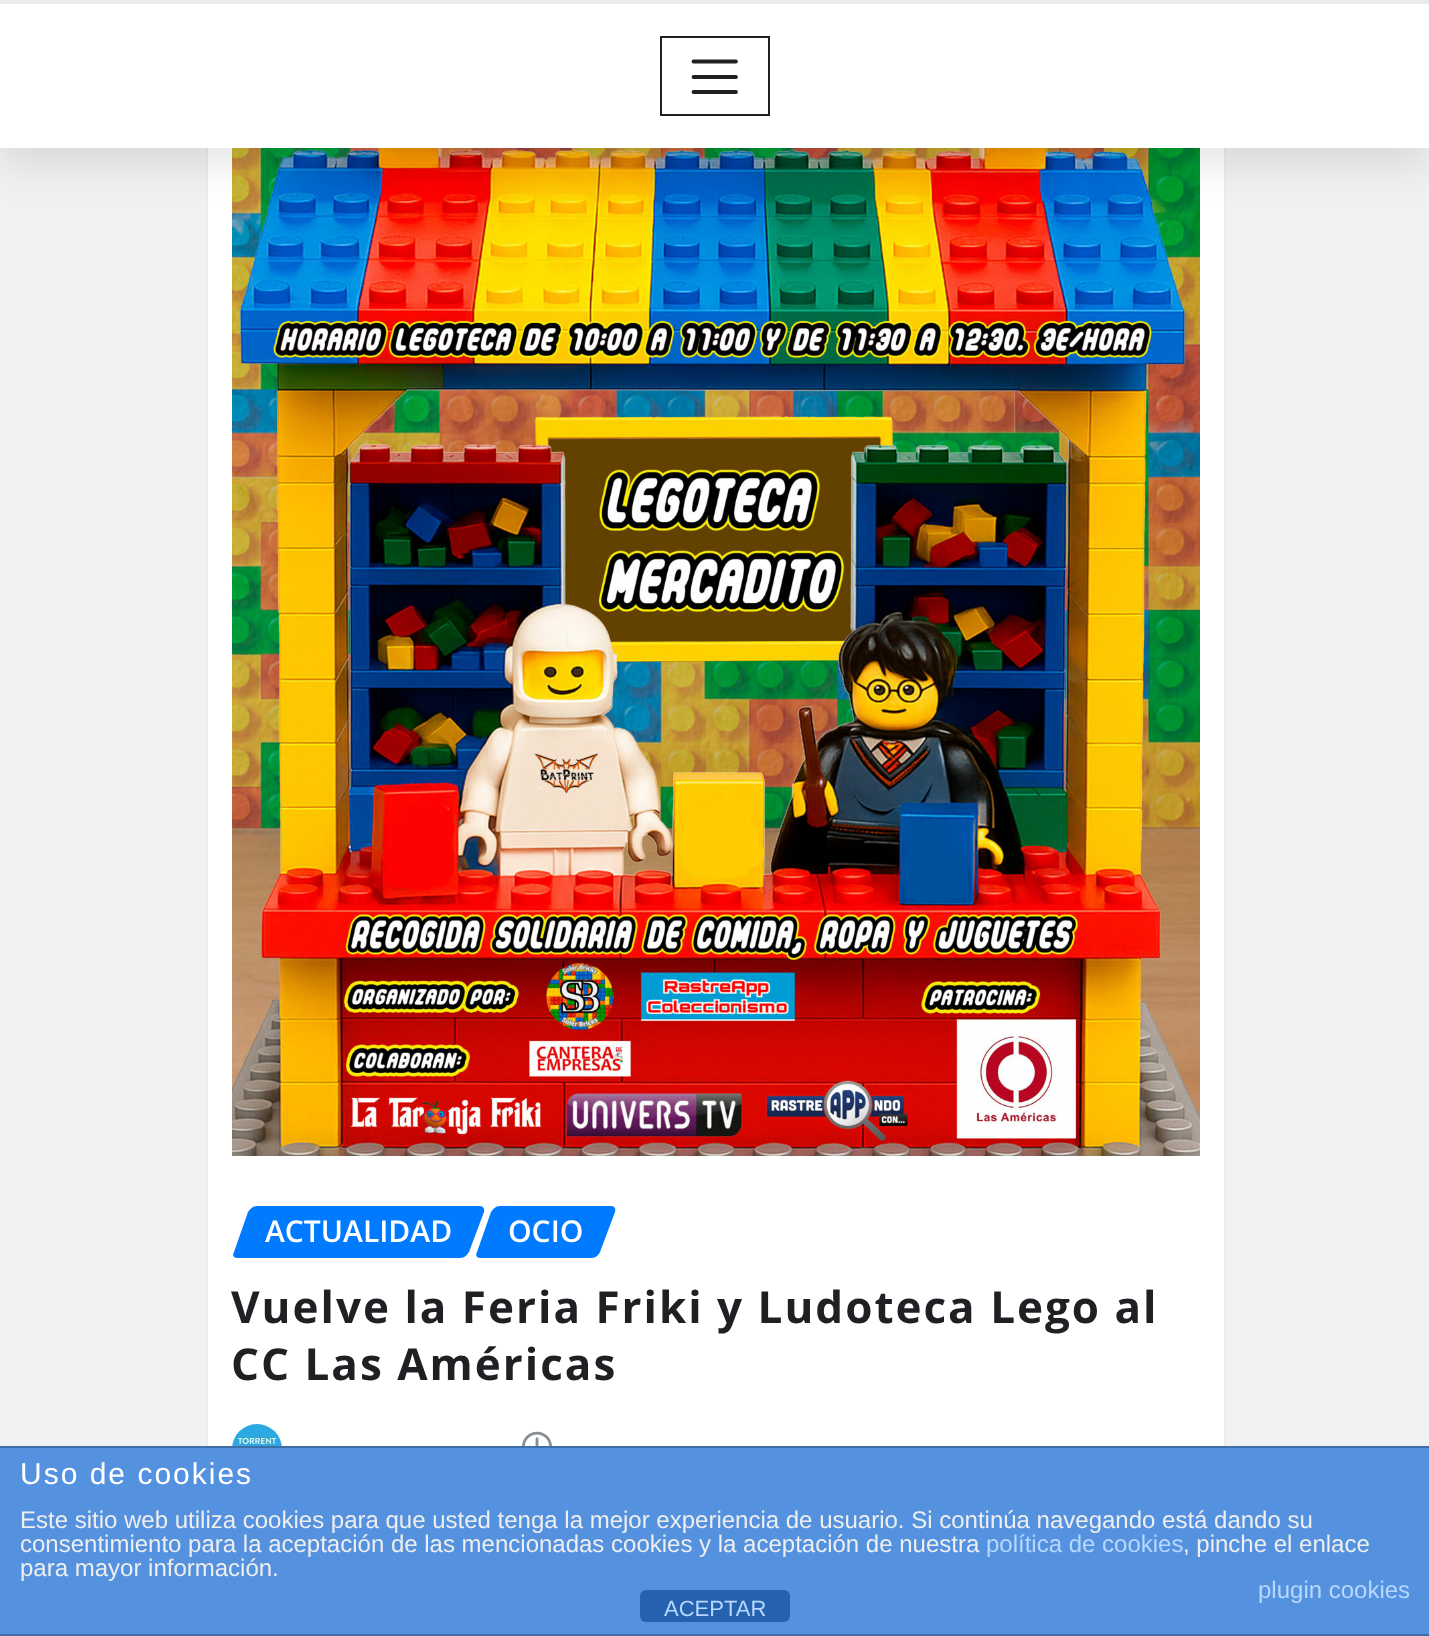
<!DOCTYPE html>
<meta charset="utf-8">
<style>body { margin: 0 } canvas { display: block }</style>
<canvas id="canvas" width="1429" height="1636"></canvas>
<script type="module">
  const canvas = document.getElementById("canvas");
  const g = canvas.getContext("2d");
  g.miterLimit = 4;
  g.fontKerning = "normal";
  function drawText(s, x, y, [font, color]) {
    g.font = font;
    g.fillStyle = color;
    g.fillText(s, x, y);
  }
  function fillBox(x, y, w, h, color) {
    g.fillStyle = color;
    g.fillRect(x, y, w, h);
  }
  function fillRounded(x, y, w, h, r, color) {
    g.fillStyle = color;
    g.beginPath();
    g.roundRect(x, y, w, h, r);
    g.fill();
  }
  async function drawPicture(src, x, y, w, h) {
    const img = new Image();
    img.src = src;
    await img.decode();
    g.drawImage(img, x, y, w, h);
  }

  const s1 = ["600 30px Open Sans", "#FFFFFF"];
  const s2 = ["bold 44px Open Sans", "#1F2024"];
  const s3 = ["30px Liberation Sans", "#FFFFFF"];
  const s4 = ["24px Liberation Sans", "#EEEEEE"];
  const s5 = ["24px Liberation Sans", "#B7D7FF"];
  const s6 = ["22px Liberation Sans", "#B7D7FF"];

  fillBox(0, 0, 1429, 1636, "#F0F1F3");
  fillBox(208, 148, 1016, 1298, "#FFFFFF");
  g.strokeStyle = "#EBEBEB";
  g.lineWidth = 2;
  g.strokeRect(207, -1, 1018, 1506);
  await drawPicture("pic1.png", 232, 148, 968, 1008);
  g.fillStyle = "rgba(0, 0, 0, 0.1)";
  g.filter = "blur(20px)";
  g.beginPath();
  g.rect(0, 16, 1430, 148);
  g.fill();
  g.filter = "none";
  fillBox(0, 4, 1429, 144, "#FFFFFF");
  fillBox(0, 0, 1429, 4, "#EBEBEB");
  g.strokeStyle = "#1F2024";
  g.strokeRect(661, 37, 108, 78);
  g.beginPath();
  g.moveTo(693.5, 61.5);
  g.lineTo(736, 61.5);
  g.moveTo(693.5, 77);
  g.lineTo(736, 77);
  g.moveTo(693.5, 92);
  g.lineTo(736, 92);
  g.lineWidth = 3.8;
  g.lineCap = "round";
  g.stroke();
  g.fillStyle = "#007BFF";
  g.beginPath();
  g.moveTo(257, 1206);
  g.lineTo(480, 1206);
  g.bezierCurveTo(483, 1206, 485, 1209, 484, 1212);
  g.lineTo(469, 1252);
  g.bezierCurveTo(467, 1255, 464, 1258, 460, 1258);
  g.lineTo(237, 1258);
  g.bezierCurveTo(234, 1258, 232, 1255, 234, 1252);
  g.lineTo(248, 1212);
  g.bezierCurveTo(250, 1209, 253, 1206, 257, 1206);
  g.closePath();
  g.fill();
  drawText("ACTUALIDAD", 265, 1242, s1);
  g.fillStyle = "#007BFF";
  g.beginPath();
  g.moveTo(500, 1206);
  g.lineTo(611, 1206);
  g.bezierCurveTo(615, 1206, 616, 1209, 615, 1212);
  g.lineTo(600, 1252);
  g.bezierCurveTo(599, 1255, 595, 1258, 592, 1258);
  g.lineTo(480, 1258);
  g.bezierCurveTo(477, 1258, 475, 1255, 477, 1252);
  g.lineTo(491, 1212);
  g.bezierCurveTo(493, 1209, 496, 1206, 500, 1206);
  g.closePath();
  g.fill();
  drawText("OCIO", 508, 1242, s1);
  g.letterSpacing = "2px";
  drawText("Vuelve la Feria Friki y Ludoteca Lego al", 231, 1323, s2);
  drawText("CC Las Américas", 231, 1380, s2);
  await drawPicture("pic2.png", 232, 1424, 50, 22);
  await drawPicture("pic3.png", 522, 1431, 30, 15);
  fillBox(0, 1448, 1429, 186, "#5492E0");
  fillBox(0, 1446, 1429, 2, "#3F6DA7");
  fillBox(0, 1634, 1429, 2, "#3F6DA7");
  drawText("Uso de cookies", 20, 1484, s3);
  g.letterSpacing = "0px";
  drawText("Este sitio web utiliza cookies para que usted tenga la mejor experiencia de usuario. Si continúa navegando está dando su", 20, 1528, s4);
  drawText("consentimiento para la aceptación de las mencionadas cookies y la aceptación de nuestra", 20, 1552, s4);
  drawText("política de cookies", 986, 1552, s5);
  drawText(", pinche el enlace", 1183, 1552, s4);
  drawText("para mayor información.", 20, 1576, s4);
  drawText("plugin cookies", 1258, 1598, s5);
  fillRounded(640, 1590, 150, 32, 6, "#2462B0");
  drawText("ACEPTAR", 664, 1616, s6);
</script>
